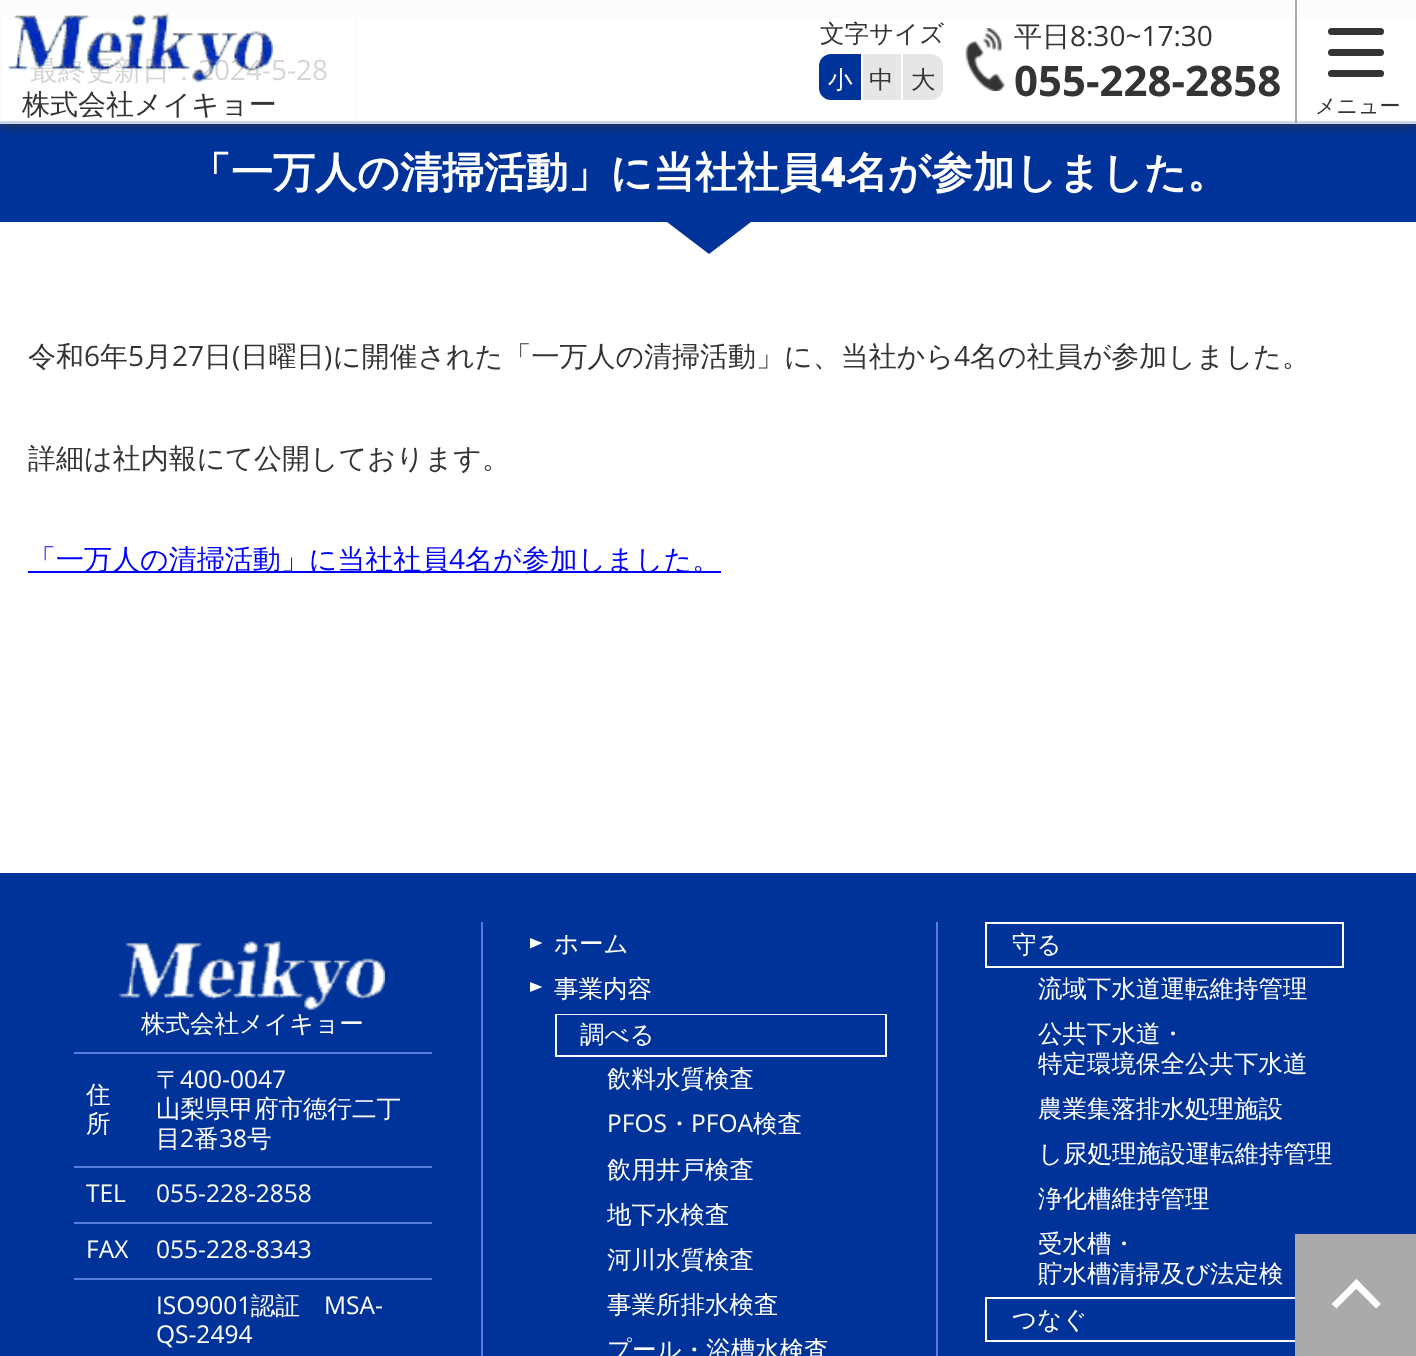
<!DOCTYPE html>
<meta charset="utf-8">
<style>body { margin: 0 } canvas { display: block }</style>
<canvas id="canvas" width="1416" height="1356"></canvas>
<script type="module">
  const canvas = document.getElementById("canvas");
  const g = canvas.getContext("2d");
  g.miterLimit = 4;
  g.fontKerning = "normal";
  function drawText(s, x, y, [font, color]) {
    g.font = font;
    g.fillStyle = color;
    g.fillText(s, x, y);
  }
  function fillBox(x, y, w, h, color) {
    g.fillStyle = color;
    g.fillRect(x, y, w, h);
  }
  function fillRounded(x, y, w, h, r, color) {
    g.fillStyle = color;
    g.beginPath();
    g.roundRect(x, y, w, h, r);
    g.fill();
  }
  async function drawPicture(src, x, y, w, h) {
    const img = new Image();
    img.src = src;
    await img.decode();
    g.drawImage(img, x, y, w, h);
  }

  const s1 = ["500 24.5px WenQuanYi Zen Hei", "#343434"];
  const s2 = ["500 24.5px WenQuanYi Zen Hei", "#FFFFFF"];
  const s3 = ["500 28px WenQuanYi Zen Hei", "#343434"];
  const s4 = ["28px Open Sans", "#343434"];
  const s5 = ["bold 42px Open Sans", "#343434"];
  const s6 = ["500 28px WenQuanYi Zen Hei", "#D6D6D6"];
  const s7 = ["28px Open Sans", "#D6D6D6"];
  const s8 = ["500 21px WenQuanYi Zen Hei", "#343434"];
  const s9 = ["bold 42px WenQuanYi Zen Hei", "#FFFFFF"];
  const s10 = ["800 42px Open Sans", "#FFFFFF"];
  const s11 = ["500 28px WenQuanYi Zen Hei", "#0000FF"];
  const s12 = ["28px Open Sans", "#0000FF"];
  const s13 = ["24.5px Open Sans", "#FFFFFF"];

  fillBox(0, 0, 1416, 1356, "#FFFFFF");
  fillBox(0, 0, 1416, 19, "#FCFCFC");
  fillBox(355, 19, 2, 102, "#FAFAFA");
  fillBox(0, 19, 2, 102, "#FAFAFA");
  fillBox(0, 124, 1416, 98, "#003399");
  fillBox(0, 121, 1416, 3, "#CCD6EB");
  g.save();
  g.beginPath();
  g.rect(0, 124, 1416, 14);
  g.clip();
  g.fillStyle = "#343434";
  g.filter = "blur(7px)";
  g.beginPath();
  g.rect(0, 0, 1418, 124);
  g.fill();
  g.filter = "none";
  g.restore();
  drawText("文字サイズ", 820, 42, s1);
  g.fillStyle = "#003399";
  g.beginPath();
  g.roundRect(819, 54, 42, 46, [12, 0, 0, 12]);
  g.fill();
  drawText("小", 828, 88, s2);
  fillBox(863, 54, 38, 46, "#E6E6E6");
  drawText("中", 869, 88, s1);
  g.fillStyle = "#E6E6E6";
  g.beginPath();
  g.roundRect(903, 54, 40, 46, [0, 12, 12, 0]);
  g.fill();
  drawText("大", 911, 88, s1);
  await drawPicture("pic1.png", 965, 28, 40, 63);
  drawText("平日", 1014, 46, s3);
  drawText("8:30~17:30", 1070, 46, s4);
  drawText("055-228-2858", 1014, 96, s5);
  drawText("最終更新日：", 30, 80, s6);
  drawText("2024-5-28", 198, 80, s7);
  await drawPicture("pic2.png", 7, 13, 266, 70);
  drawText("株式会社メイキョー", 22, 114, s3);
  fillBox(1295, 0, 2, 123, "#AAAAAA");
  fillRounded(1328, 49, 56, 7, 3.5, "#343434");
  fillRounded(1328, 28, 56, 7, 3.5, "#343434");
  fillRounded(1328, 70, 56, 7, 3.5, "#343434");
  drawText("メニュー", 1315, 113, s8);
  drawText("「一万人の清掃活動」に当社社員", 189, 187, s9);
  drawText("4", 821, 187, s10);
  drawText("名が参加しました。", 846, 187, s9);
  g.fillStyle = "#003399";
  g.beginPath();
  g.moveTo(667, 222);
  g.lineTo(751, 222);
  g.lineTo(709, 254);
  g.closePath();
  g.fill();
  drawText("令和", 28, 366, s3);
  drawText("6", 84, 366, s4);
  drawText("年", 100, 366, s3);
  drawText("5", 128, 366, s4);
  drawText("月", 144, 366, s3);
  drawText("27", 172, 366, s4);
  drawText("日 日曜日 に開催された「一万人の清掃活動」に、当社から", 204, 366, s3);
  drawText("4", 954, 366, s4);
  drawText("名の社員が参加しました。", 970, 366, s3);
  drawText("(", 232, 366, s4);
  drawText(")", 324, 366, s4);
  drawText("詳細は社内報にて公開しております。", 28, 468, s3);
  fillBox(28, 571, 693, 2, "#0000FF");
  drawText("「一万人の清掃活動」に当社社員", 28, 569, s11);
  drawText("4", 449, 569, s12);
  drawText("名が参加しました。", 465, 569, s11);
  fillBox(0, 873, 1416, 483, "#003399");
  await drawPicture("pic3.png", 119, 941, 266, 69);
  drawText("株式会社メイキョー", 141, 1032, s2);
  fillBox(74, 1052, 358, 2, "#597CDE");
  drawText("住", 86, 1103, s2);
  drawText("所", 86, 1132, s2);
  drawText("〒", 156, 1088, s2);
  drawText("400-0047", 180, 1088, s13);
  drawText("山梨県甲府市徳行二丁", 156, 1117, s2);
  drawText("目", 156, 1147, s2);
  drawText("2", 180, 1147, s13);
  drawText("番", 194, 1147, s2);
  drawText("38", 219, 1147, s13);
  drawText("号", 247, 1147, s2);
  fillBox(74, 1166, 358, 2, "#597CDE");
  drawText("TEL", 86, 1202, s13);
  drawText("055-228-2858", 156, 1202, s13);
  fillBox(74, 1222, 358, 2, "#597CDE");
  drawText("FAX", 86, 1258, s13);
  drawText("055-228-8343", 156, 1258, s13);
  fillBox(74, 1278, 358, 2, "#597CDE");
  drawText("ISO9001", 156, 1314, s13);
  drawText("認証", 251, 1314, s2);
  drawText("MSA-", 324, 1314, s13);
  drawText("QS-2494", 156, 1343, s13);
  fillBox(481, 922, 2, 434, "#597CDE");
  g.fillStyle = "#FFFFFF";
  g.beginPath();
  g.moveTo(530, 948.5);
  g.lineTo(530, 938);
  g.lineTo(542.5, 943);
  g.closePath();
  g.fill();
  drawText("ホーム", 554, 952, s2);
  g.strokeStyle = "#FFFFFF";
  g.lineWidth = 2;
  g.strokeRect(556, 1014, 330, 42);
  fillBox(555, 1013, 332, 1, "#003399");
  g.fillStyle = "#FFFFFF";
  g.beginPath();
  g.moveTo(530, 992);
  g.lineTo(530, 982);
  g.lineTo(542.5, 987);
  g.closePath();
  g.fill();
  drawText("事業内容", 554, 997, s2);
  drawText("調べる", 580, 1043, s2);
  drawText("飲料水質検査", 607, 1087, s2);
  drawText("PFOS", 607, 1132, s13);
  drawText("・", 667, 1132, s2);
  drawText("PFOA", 691, 1132, s13);
  drawText("検査", 753, 1132, s2);
  drawText("飲用井戸検査", 607, 1178, s2);
  drawText("地下水検査", 607, 1223, s2);
  drawText("河川水質検査", 607, 1268, s2);
  drawText("事業所排水検査", 607, 1313, s2);
  drawText("プール・浴槽水検査", 607, 1358, s2);
  fillBox(936, 922, 2, 434, "#597CDE");
  g.strokeRect(986, 923, 357, 44);
  drawText("守る", 1012, 953, s2);
  drawText("流域下水道運転維持管理", 1038, 997, s2);
  drawText("公共下水道・", 1038, 1042, s2);
  drawText("特定環境保全公共下水道", 1038, 1072, s2);
  drawText("農業集落排水処理施設", 1038, 1117, s2);
  drawText("し尿処理施設運転維持管理", 1038, 1162, s2);
  drawText("浄化槽維持管理", 1038, 1207, s2);
  drawText("受水槽・", 1038, 1252, s2);
  drawText("貯水槽清掃及び法定検", 1038, 1282, s2);
  g.strokeRect(986, 1298, 357, 43);
  drawText("つなぐ", 1012, 1328, s2);
  fillBox(1295, 1234, 121, 122, "#AAAAAA");
  g.fillStyle = "#FFFFFF";
  g.beginPath();
  g.moveTo(1331.5, 1304);
  g.lineTo(1356.5, 1279);
  g.lineTo(1361, 1284);
  g.lineTo(1336.5, 1308.5);
  g.closePath();
  g.fill();
  g.beginPath();
  g.moveTo(1351.5, 1284);
  g.lineTo(1356.5, 1279);
  g.lineTo(1381, 1304);
  g.lineTo(1376, 1308.5);
  g.closePath();
  g.fill();
</script>
